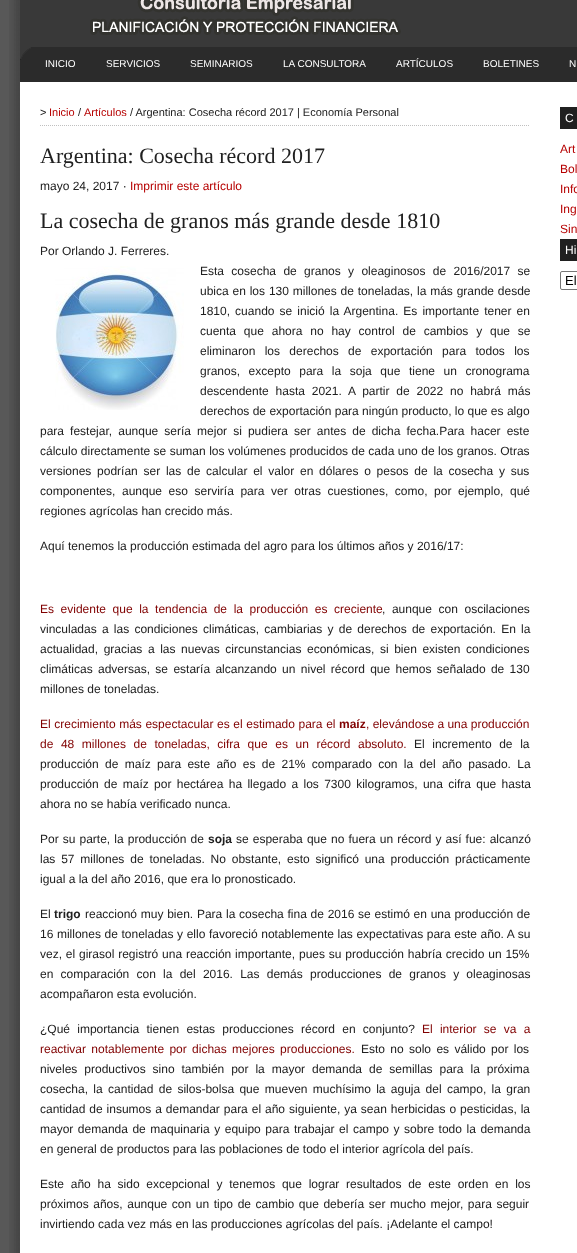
<!DOCTYPE html>
<meta charset="utf-8">
<style>body { margin: 0 } canvas { display: block }</style>
<canvas id="canvas" width="577" height="1253"></canvas>
<script type="module">
  const canvas = document.getElementById("canvas");
  const g = canvas.getContext("2d");
  g.miterLimit = 4;
  g.fontKerning = "normal";
  function drawText(s, x, y, [font, color]) {
    g.font = font;
    g.fillStyle = color;
    g.fillText(s, x, y);
  }
  function fillBox(x, y, w, h, color) {
    g.fillStyle = color;
    g.fillRect(x, y, w, h);
  }
  async function drawPicture(src, x, y, w, h) {
    const img = new Image();
    img.src = src;
    await img.decode();
    g.drawImage(img, x, y, w, h);
  }

  const s1 = ["10px Liberation Sans", "#FFFFFF"];
  const s2 = ["11px Liberation Sans", "#202020"];
  const s3 = ["11px Liberation Sans", "#B60000"];
  const s4 = ["22px Liberation Serif", "#202020"];
  const s5 = ["12px Liberation Sans", "#202020"];
  const s6 = ["12px Liberation Sans", "#B60000"];
  const s7 = ["12px Liberation Sans", "#800000"];
  const s8 = ["bold 12px Liberation Sans", "#800000"];
  const s9 = ["bold 12px Liberation Sans", "#202020"];
  const s10 = ["12px Liberation Sans", "#FFFFFF"];
  const s11 = ["13px Liberation Sans", "#000000"];

  fillBox(0, 0, 577, 1253, "#585858");
  await drawPicture("pic1.png", 9, 0, 11, 1253);
  fillBox(20, 82, 557, 1171, "#FFFFFF");
  fillBox(20, 0, 557, 47, "#393939");
  await drawPicture("pic2.png", 90, 0, 311, 35);
  fillBox(20, 47, 557, 35, "#2B2B2B");
  await drawPicture("pic3.png", 20, 47, 11, 13);
  drawText("INICIO", 45, 67, s1);
  drawText("SERVICIOS", 106, 67, s1);
  drawText("SEMINARIOS", 190, 67, s1);
  drawText("LA CONSULTORA", 283, 67, s1);
  drawText("ARTÍCULOS", 396, 67, s1);
  drawText("BOLETINES", 483, 67, s1);
  drawText("N", 569, 67, s1);
  g.beginPath();
  g.moveTo(40, 125.5);
  g.lineTo(530, 125.5);
  g.strokeStyle = "#C0C0C0";
  g.setLineDash([1, 1]);
  g.stroke();
  drawText(">", 40, 116, s2);
  drawText("Inicio", 49, 116, s3);
  drawText("/", 78, 116, s2);
  drawText("Artículos", 84, 116, s3);
  drawText("/ Argentina: Cosecha récord 2017 | Economía Personal", 130, 116, s2);
  drawText("Argentina: Cosecha récord 2017", 40, 163, s4);
  drawText("mayo 24, 2017 ·", 40, 190, s5);
  drawText("Imprimir este artículo", 130, 190, s6);
  drawText("La cosecha de granos más grande desde 1810", 40, 228, s4);
  drawText("Por Orlando J. Ferreres.", 40, 255, s5);
  await drawPicture("pic4.png", 55, 266, 129, 144);
  g.wordSpacing = "4px";
  drawText("Esta cosecha de granos y oleaginosos de 2016/2017 se", 200, 275, s5);
  g.wordSpacing = "0.5px";
  drawText("ubica en los 130 millones de toneladas, la más grande desde", 200, 295, s5);
  g.wordSpacing = "1.75px";
  drawText("1810, cuando se inició la Argentina. Es importante tener en", 200, 315, s5);
  g.wordSpacing = "4.5px";
  drawText("cuenta que ahora no hay control de cambios y que se", 200, 335, s5);
  g.wordSpacing = "6px";
  drawText("eliminaron los derechos de exportación para todos los", 200, 355, s5);
  g.wordSpacing = "5.25px";
  drawText("granos, excepto para la soja que tiene un cronograma", 200, 375, s5);
  g.wordSpacing = "3.5px";
  drawText("descendente hasta 2021. A partir de 2022 no habrá más", 200, 395, s5);
  g.wordSpacing = "0px";
  drawText("derechos de exportación para ningún producto, lo que es algo", 200, 415, s5);
  g.wordSpacing = "2.75px";
  drawText("para festejar, aunque sería mejor si pudiera ser antes de dicha fecha.Para hacer este", 40, 435, s5);
  g.wordSpacing = "0.1px";
  drawText("cálculo directamente se suman los volúmenes producidos de cada uno de los granos. Otras", 40, 455, s5);
  g.wordSpacing = "2.4px";
  drawText("versiones podrían ser las de calcular el valor en dólares o pesos de la cosecha y sus", 40, 475, s5);
  g.wordSpacing = "3.25px";
  drawText("componentes, aunque eso serviría para ver otras cuestiones, como, por ejemplo, qué", 40, 495, s5);
  g.wordSpacing = "0px";
  drawText("regiones agrícolas han crecido más.", 40, 515, s5);
  drawText("Aquí tenemos la producción estimada del agro para los últimos años y 2016/17:", 40, 550, s5);
  g.wordSpacing = "3.25px";
  drawText("Es evidente que la tendencia de la producción es creciente", 40, 613, s7);
  drawText(", aunque con oscilaciones", 382, 613, s5);
  g.wordSpacing = "1.9px";
  drawText("vinculadas a las condiciones climáticas, cambiarias y de derechos de exportación. En la", 40, 633, s5);
  g.wordSpacing = "2.25px";
  drawText("actualidad, gracias a las nuevas circunstancias económicas, si bien existen condiciones", 40, 653, s5);
  g.wordSpacing = "2px";
  drawText("climáticas adversas, se estaría alcanzando un nivel récord que hemos señalado de 130", 40, 673, s5);
  g.wordSpacing = "0px";
  drawText("millones de toneladas.", 40, 693, s5);
  g.wordSpacing = "0.25px";
  drawText("El crecimiento más espectacular es el estimado para el", 40, 728, s7);
  g.wordSpacing = "0px";
  drawText("maíz", 339, 728, s8);
  drawText(", elevándose a una producción", 366, 728, s7);
  g.wordSpacing = "4.25px";
  drawText("de 48 millones de toneladas, cifra que es un récord absoluto.", 40, 748, s7);
  drawText("El incremento de la", 414, 748, s5);
  g.wordSpacing = "3px";
  drawText("producción de maíz para este año es de 21% comparado con la del año pasado. La", 40, 768, s5);
  g.wordSpacing = "2px";
  drawText("producción de maíz por hectárea ha llegado a los 7300 kilogramos, una cifra que hasta", 40, 788, s5);
  g.wordSpacing = "0px";
  drawText("ahora no se había verificado nunca.", 40, 808, s5);
  g.wordSpacing = "0.75px";
  drawText("Por su parte, la producción de", 40, 843, s5);
  g.wordSpacing = "0px";
  drawText("soja", 208, 843, s9);
  g.wordSpacing = "0.75px";
  drawText("se esperaba que no fuera un récord y así fue: alcanzó", 236, 843, s5);
  g.wordSpacing = "2.5px";
  drawText("las 57 millones de toneladas. No obstante, esto significó una producción prácticamente", 40, 863, s5);
  g.wordSpacing = "0px";
  drawText("igual a la del año 2016, que era lo pronosticado.", 40, 883, s5);
  drawText("El", 40, 918, s5);
  drawText("trigo", 54, 918, s9);
  g.wordSpacing = "0.4px";
  drawText("reaccionó muy bien. Para la cosecha fina de 2016 se estimó en una producción de", 85, 918, s5);
  g.wordSpacing = "0.25px";
  drawText("16 millones de toneladas y ello favoreció notablemente las expectativas para este año. A su", 40, 938, s5);
  g.wordSpacing = "0.5px";
  drawText("vez, el girasol registró una reacción importante, pues su producción habría crecido un 15%", 40, 958, s5);
  g.wordSpacing = "3.9px";
  drawText("en comparación con la del 2016. Las demás producciones de granos y oleaginosas", 40, 978, s5);
  g.wordSpacing = "0px";
  drawText("acompañaron esta evolución.", 40, 998, s5);
  g.wordSpacing = "3.9px";
  drawText("¿Qué importancia tienen estas producciones récord en conjunto?", 40, 1033, s5);
  drawText("El interior se va a", 422, 1033, s7);
  g.wordSpacing = "2px";
  drawText("reactivar notablemente por dichas mejores producciones.", 40, 1053, s7);
  drawText("Esto no solo es válido por los", 361, 1053, s5);
  g.wordSpacing = "3.6px";
  drawText("niveles productivos sino también por la mayor demanda de semillas para la próxima", 40, 1073, s5);
  g.wordSpacing = "2px";
  drawText("cosecha, la cantidad de silos-bolsa que mueven muchísimo la aguja del campo, la gran", 40, 1093, s5);
  g.wordSpacing = "0.6px";
  drawText("cantidad de insumos a demandar para el año siguiente, ya sean herbicidas o pesticidas, la", 40, 1113, s5);
  g.wordSpacing = "1.2px";
  drawText("mayor demanda de maquinaria y equipo para trabajar el campo y sobre todo la demanda", 40, 1133, s5);
  g.wordSpacing = "0px";
  drawText("en general de productos para las poblaciones de todo el interior agrícola del país.", 40, 1153, s5);
  g.wordSpacing = "3.4px";
  drawText("Este año ha sido excepcional y tenemos que lograr resultados de este orden en los", 40, 1188, s5);
  g.wordSpacing = "1.25px";
  drawText("próximos años, aunque con un tipo de cambio que debería ser mucho mejor, para seguir", 40, 1208, s5);
  g.wordSpacing = "0px";
  drawText("invirtiendo cada vez más en las producciones agrícolas del país. ¡Adelante el campo!", 40, 1228, s5);
  fillBox(560, 107, 17, 22, "#202020");
  drawText("C", 565, 122, s10);
  drawText("Art", 560, 153, s6);
  drawText("Bol", 560, 173, s6);
  drawText("Info", 560, 193, s6);
  drawText("Ing", 560, 213, s6);
  drawText("Sin", 560, 233, s6);
  fillBox(560, 239, 17, 22, "#202020");
  drawText("Hi", 565, 254, s10);
  g.beginPath();
  g.roundRect(560.5, 271.5, 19, 18, 1.5);
  g.strokeStyle = "#767676";
  g.setLineDash([]);
  g.stroke();
  drawText("El", 565, 285, s11);
</script>
